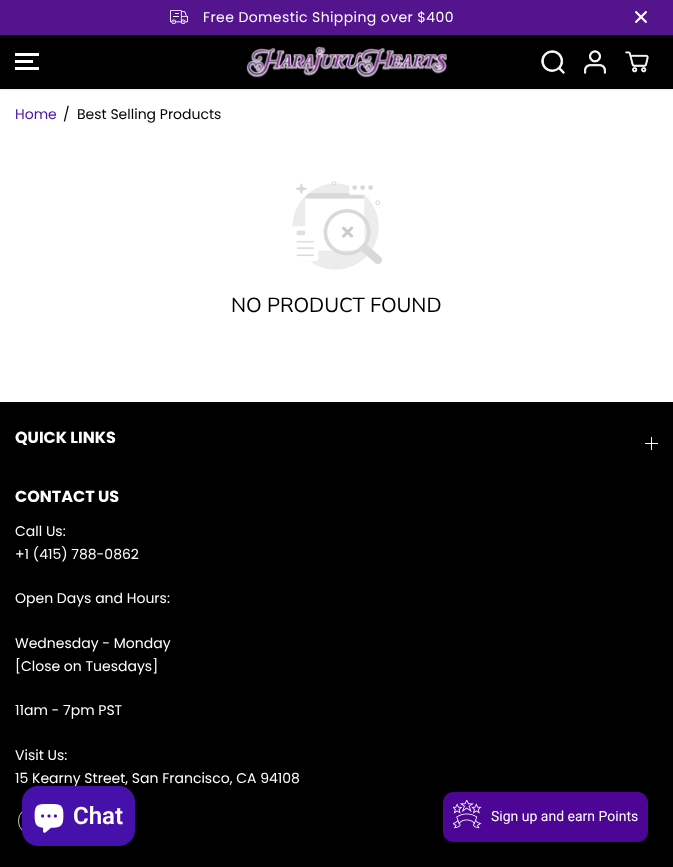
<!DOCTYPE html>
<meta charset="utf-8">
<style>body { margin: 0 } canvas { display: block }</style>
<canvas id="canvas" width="673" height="867"></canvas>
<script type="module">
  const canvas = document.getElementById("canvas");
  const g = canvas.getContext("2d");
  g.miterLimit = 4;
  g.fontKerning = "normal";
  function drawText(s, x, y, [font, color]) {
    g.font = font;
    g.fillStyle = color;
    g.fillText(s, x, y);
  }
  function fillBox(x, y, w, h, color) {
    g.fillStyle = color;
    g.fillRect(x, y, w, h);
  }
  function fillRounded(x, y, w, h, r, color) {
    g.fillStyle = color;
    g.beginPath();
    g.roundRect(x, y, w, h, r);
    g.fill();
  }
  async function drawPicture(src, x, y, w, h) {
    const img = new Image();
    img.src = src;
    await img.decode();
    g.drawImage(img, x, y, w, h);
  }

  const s1 = ["14px Poppins", "#FFFFFF"];
  const s2 = ["14px Poppins", "#4611AB"];
  const s3 = ["14px Poppins", "#000000"];
  const s4 = ["20.4px Nunito Sans", "#000000"];
  const s5 = ["bold 16px Poppins", "#FFFFFF"];
  const s6 = ["600 24px Roboto", "#FFFFFF"];
  const s7 = ["14px Roboto", "#FFFFFF"];

  fillBox(0, 0, 673, 867, "#FFFFFF");
  fillBox(0, 0, 673, 35, "#53148D");
  await drawPicture("pic1.png", 170, 10, 18, 14);
  g.letterSpacing = "0.4px";
  drawText("Free Domestic Shipping over $400", 203, 22, s1);
  await drawPicture("pic2.png", 635, 11, 12, 12);
  fillBox(0, 35, 673, 54, "#000000");
  g.save();
  g.beginPath();
  g.rect(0, 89, 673, 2);
  g.clip();
  g.fillStyle = "rgba(0, 0, 0, 0.05)";
  g.filter = "blur(1px)";
  g.beginPath();
  g.rect(0, 37, 673, 54);
  g.fill();
  g.filter = "none";
  g.restore();
  fillBox(15, 60, 18, 3, "#FFFFFF");
  fillBox(15, 53, 24, 3, "#FFFFFF");
  fillBox(15, 67, 24, 3, "#FFFFFF");
  await drawPicture("pic3.png", 246, 46, 201, 32);
  await drawPicture("pic4.png", 541, 50, 24, 24);
  await drawPicture("pic5.png", 584, 50, 22, 24);
  await drawPicture("pic6.png", 625, 51, 24, 22);
  g.letterSpacing = "0px";
  drawText("Home", 15, 119, s2);
  drawText("/", 63, 119, s3);
  drawText("Best Selling Products", 77, 119, s3);
  await drawPicture("pic7.png", 292, 181, 90, 89);
  drawText("NO PRODUCT FOUND", 231, 312, s4);
  fillBox(0, 402, 673, 465, "#000000");
  drawText("QUICK LINKS", 15, 443, s5);
  fillBox(651, 437, 1, 13, "#FFFFFF");
  fillBox(645, 443, 13, 1, "#FFFFFF");
  drawText("CONTACT US", 15, 502, s5);
  drawText("Call Us:", 15, 536, s1);
  drawText("+1 (415) 788-0862", 15, 559, s1);
  drawText("Open Days and Hours:", 15, 603, s1);
  drawText("Wednesday - Monday", 15, 648, s1);
  drawText("[Close on Tuesdays]", 15, 671, s1);
  drawText("11am - 7pm PST", 15, 715, s1);
  drawText("Visit Us:", 15, 760, s1);
  drawText("15 Kearny Street, San Francisco, CA 94108", 15, 783, s1);
  g.beginPath();
  g.arc(32, 821, 13.6, 0, Math.PI * 2);
  g.strokeStyle = "#FFFFFF";
  g.lineWidth = 0.8;
  g.stroke();
  g.fillStyle = "rgba(0, 0, 0, 0.15)";
  g.filter = "blur(2.5px)";
  g.beginPath();
  g.roundRect(22, 786, 113, 60, 16);
  g.fill();
  g.filter = "none";
  fillRounded(22, 786, 113, 60, 16, "#4611AB");
  await drawPicture("pic8.png", 34, 804, 30, 29);
  drawText("Chat", 73, 824, s6);
  fillRounded(443, 792, 205, 50, 10, "#4C0595");
  await drawPicture("pic9.png", 453, 800, 29, 29);
  drawText("Sign up and earn Points", 491, 821, s7);
</script>
